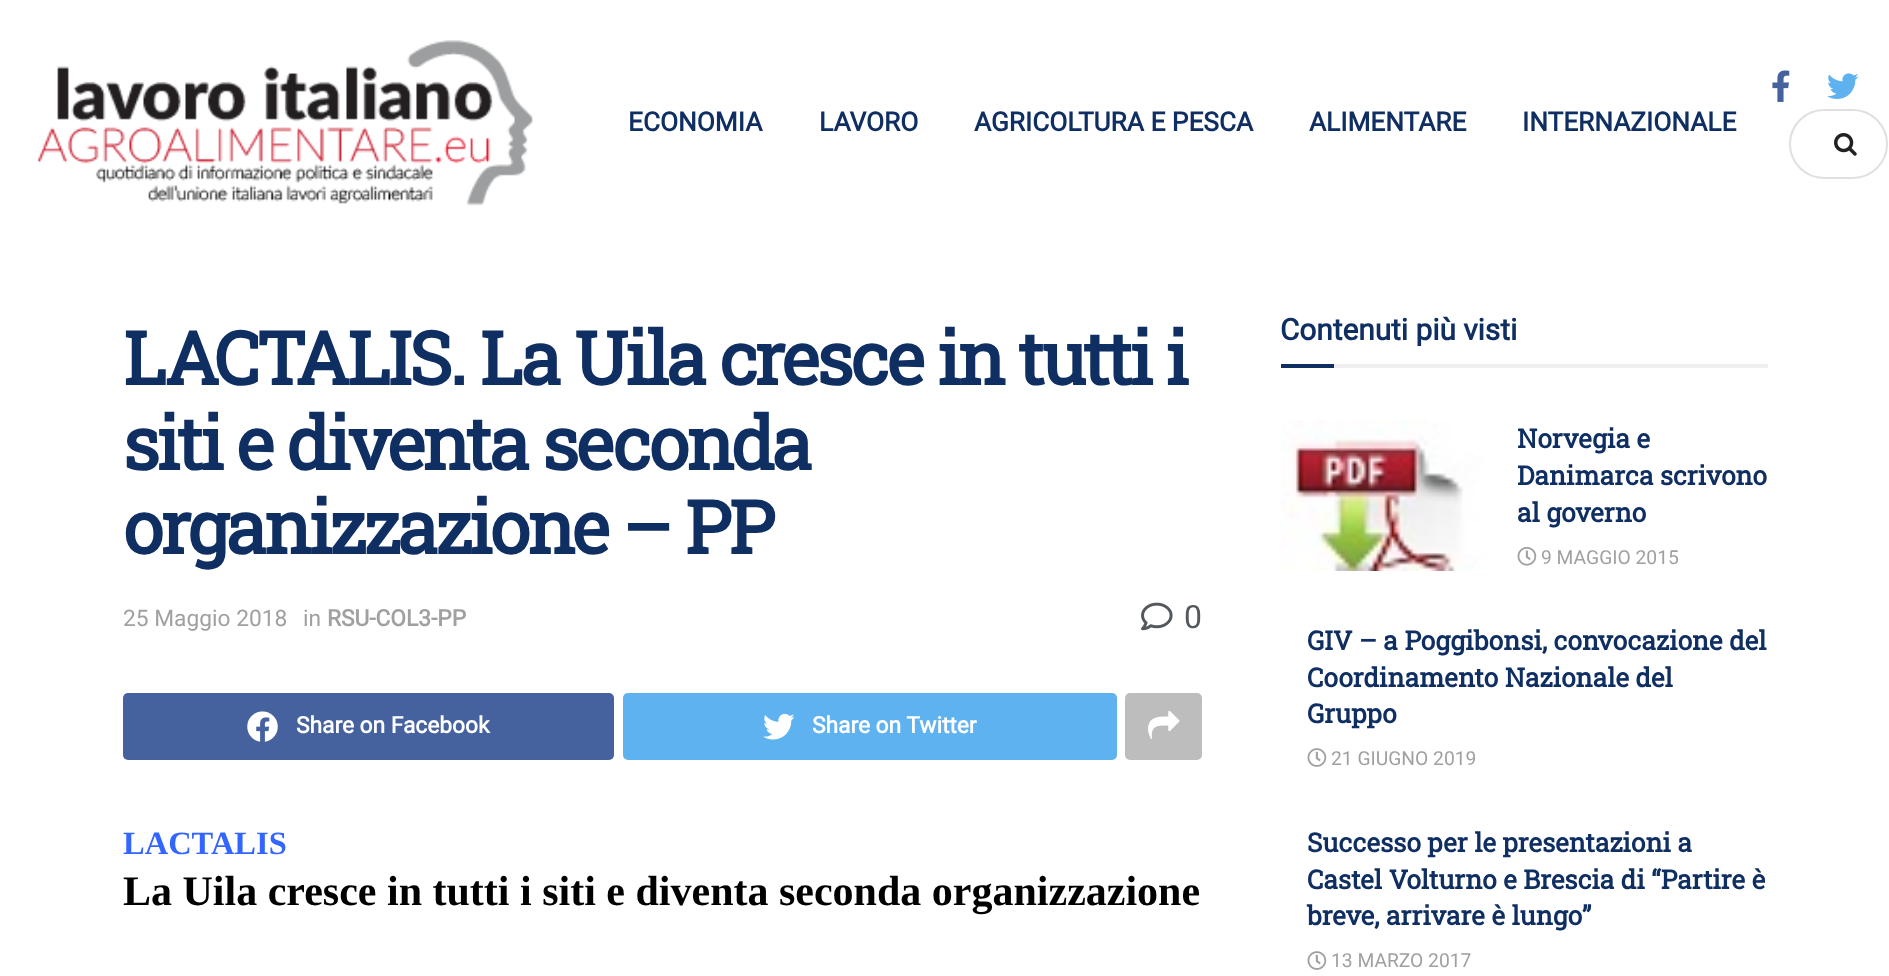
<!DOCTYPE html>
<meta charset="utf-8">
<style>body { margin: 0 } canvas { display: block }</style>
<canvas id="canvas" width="1889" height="976"></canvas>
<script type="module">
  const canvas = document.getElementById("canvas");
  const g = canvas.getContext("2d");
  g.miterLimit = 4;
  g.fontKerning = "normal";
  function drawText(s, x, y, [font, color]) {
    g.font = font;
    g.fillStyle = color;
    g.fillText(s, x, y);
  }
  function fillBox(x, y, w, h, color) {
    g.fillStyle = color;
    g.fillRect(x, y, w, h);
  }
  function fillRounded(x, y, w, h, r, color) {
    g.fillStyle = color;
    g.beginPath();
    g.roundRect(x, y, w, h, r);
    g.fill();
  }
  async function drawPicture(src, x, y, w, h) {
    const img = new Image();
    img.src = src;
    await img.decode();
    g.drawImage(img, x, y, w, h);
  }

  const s1 = ["bold 26.25px Roboto", "#0F2E62"];
  const s2 = ["bold 73.5px Roboto Slab", "#0F2E62"];
  const s3 = ["22.75px Roboto", "#A0A0A0"];
  const s4 = ["bold 22.75px Roboto", "#A0A0A0"];
  const s5 = ["32px Roboto", "#53585C"];
  const s6 = ["bold 22.75px Roboto", "#FFFFFF"];
  const s7 = ["bold 32.5px Liberation Serif", "#3366FF"];
  const s8 = ["bold 42px Liberation Serif", "#000000"];
  const s9 = ["bold 29.75px Roboto", "#0F2E62"];
  const s10 = ["bold 26.25px Roboto Slab", "#0F2E62"];
  const s11 = ["19.25px Roboto", "#A0A0A0"];

  fillBox(0, 0, 1889, 976, "#FFFFFF");
  await drawPicture("pic1.png", 37, 40, 496, 166);
  drawText("ECONOMIA", 628, 131, s1);
  drawText("LAVORO", 819, 131, s1);
  drawText("AGRICOLTURA E PESCA", 974, 131, s1);
  drawText("ALIMENTARE", 1309, 131, s1);
  drawText("INTERNAZIONALE", 1522, 131, s1);
  await drawPicture("pic2.png", 1772, 70, 18, 32);
  await drawPicture("pic3.png", 1827, 73, 32, 26);
  g.beginPath();
  g.roundRect(1790, 110, 97, 68, 34);
  g.strokeStyle = "#E0E0E0";
  g.lineWidth = 2;
  g.stroke();
  await drawPicture("pic4.png", 1834, 133, 23, 23);
  g.letterSpacing = "-2.95px";
  drawText("LACTALIS. La Uila cresce in tutti i", 123, 385, s2);
  drawText("siti e diventa seconda", 123, 470, s2);
  drawText("organizzazione – PP", 123, 554, s2);
  g.letterSpacing = "0px";
  drawText("25 Maggio 2018", 123, 626, s3);
  drawText("in", 303, 626, s3);
  drawText("RSU-COL3-PP", 327, 626, s4);
  await drawPicture("pic5.png", 1141, 602, 32, 29);
  drawText("0", 1184, 628, s5);
  fillRounded(123, 693, 491, 67, 5, "#45629F");
  await drawPicture("pic6.png", 247, 711, 31, 31);
  drawText("Share on Facebook", 296, 733, s6);
  fillRounded(623, 693, 494, 67, 5, "#5EB2EF");
  await drawPicture("pic7.png", 763, 713, 32, 27);
  drawText("Share on Twitter", 812, 733, s6);
  fillRounded(1125, 693, 77, 67, 5, "#BDBDBD");
  await drawPicture("pic8.png", 1148, 710, 32, 29);
  drawText("LACTALIS", 123, 854, s7);
  drawText("La Uila cresce in tutti i siti e diventa seconda organizzazione", 123, 905, s8);
  fillBox(1334, 364, 434, 4, "#EEEEEE");
  drawText("Contenuti più visti", 1280, 340, s9);
  fillBox(1281, 364, 53, 4, "#0F2E62");
  await drawPicture("pic9.png", 1281, 420, 210, 151);
  drawText("Norvegia e", 1517, 448, s10);
  drawText("Danimarca scrivono", 1517, 485, s10);
  drawText("al governo", 1517, 522, s10);
  await drawPicture("pic10.png", 1517, 547, 20, 19);
  drawText("9 MAGGIO 2015", 1541, 564, s11);
  drawText("GIV – a Poggibonsi, convocazione del", 1307, 650, s10);
  drawText("Coordinamento Nazionale del", 1307, 687, s10);
  drawText("Gruppo", 1307, 723, s10);
  await drawPicture("pic11.png", 1307, 748, 20, 19);
  drawText("21 GIUGNO 2019", 1331, 765, s11);
  drawText("Successo per le presentazioni a", 1307, 852, s10);
  drawText("Castel Volturno e Brescia di “Partire è", 1307, 889, s10);
  drawText("breve, arrivare è lungo”", 1307, 925, s10);
  await drawPicture("pic11.png", 1307, 951, 20, 19);
  drawText("13 MARZO 2017", 1331, 967, s11);
</script>
